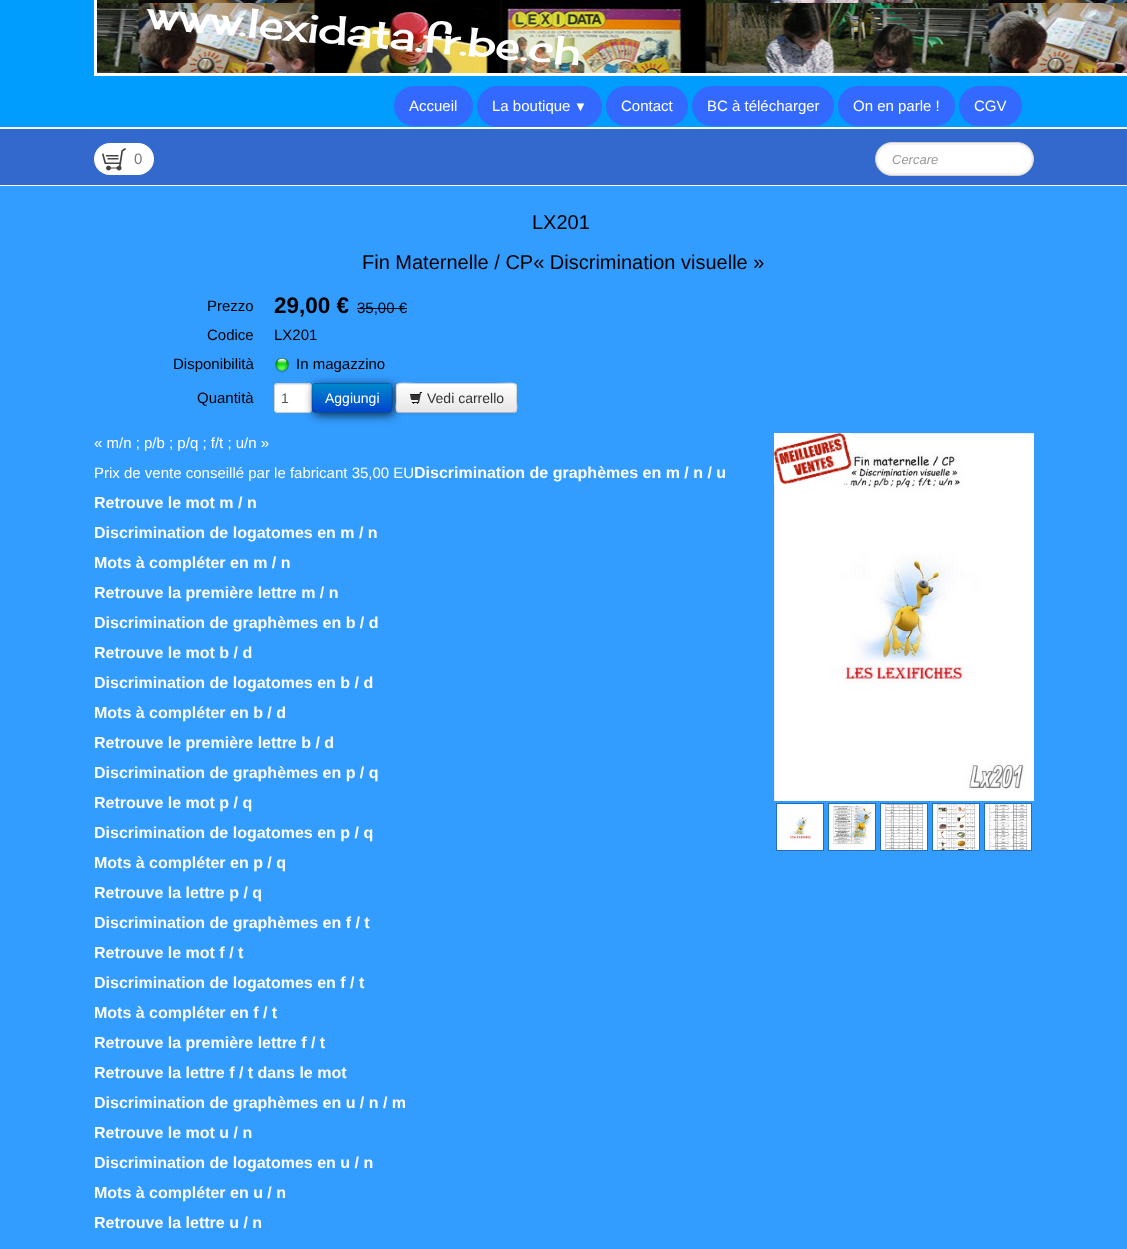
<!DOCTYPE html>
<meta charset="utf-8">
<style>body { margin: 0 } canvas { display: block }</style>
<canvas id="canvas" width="1127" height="1249"></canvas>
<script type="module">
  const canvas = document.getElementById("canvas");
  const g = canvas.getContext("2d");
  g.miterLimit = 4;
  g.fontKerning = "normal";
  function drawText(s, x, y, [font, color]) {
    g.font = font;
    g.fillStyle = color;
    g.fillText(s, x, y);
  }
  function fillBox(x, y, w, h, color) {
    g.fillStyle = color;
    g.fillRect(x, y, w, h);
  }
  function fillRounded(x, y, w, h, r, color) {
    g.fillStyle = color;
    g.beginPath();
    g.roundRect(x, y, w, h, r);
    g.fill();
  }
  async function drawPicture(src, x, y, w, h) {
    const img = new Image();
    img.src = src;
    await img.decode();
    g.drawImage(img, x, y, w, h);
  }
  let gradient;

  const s1 = ["15px Liberation Sans", "#FFFFFF"];
  const s2 = ["13px Liberation Sans", "#FFFFFF"];
  const s3 = ["15px Liberation Sans", "#777777"];
  const s4 = ["italic 13px Liberation Sans", "#999999"];
  const s5 = ["20px Liberation Sans", "#000000"];
  const s6 = ["15px Liberation Sans", "#000000"];
  const s7 = ["bold 22.5px Liberation Sans", "#000000"];
  const s8 = ["14px Liberation Sans", "#555555"];
  const s9 = ["14px Liberation Sans", "#FFFFFF"];
  const s10 = ["14px Liberation Sans", "#333333"];
  const s11 = ["bold 16px Liberation Sans", "#FFFFFF"];

  fillBox(0, 0, 1127, 1249, "#009DFF");
  fillBox(0, 127, 1127, 2, "#FFFFFF");
  await drawPicture("pic1.png", 97, 0, 1030, 73);
  g.strokeStyle = "#FFFFFF";
  g.lineWidth = 3;
  g.strokeRect(95.5, -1.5, 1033, 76);
  g.font = "40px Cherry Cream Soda";
  g.save();
  g.translate(146, 28);
  g.rotate(5 * Math.PI / 180);
  g.fillText("www.lexidata.fr.be.ch", 0, 0);
  g.restore();
  fillRounded(394, 86, 79, 40, 20, "#3369FF");
  drawText("Accueil", 409, 111, s1);
  fillRounded(477, 86, 125, 41, 20.5, "#3369FF");
  drawText("La boutique", 492, 111, s1);
  drawText("▼", 574, 111, s2);
  fillRounded(606, 86, 82, 40, 20, "#3369FF");
  drawText("Contact", 621, 111, s1);
  fillRounded(692, 86, 142, 40, 20, "#3369FF");
  drawText("BC à télécharger", 707, 111, s1);
  fillRounded(838, 86, 117, 40, 20, "#3369FF");
  drawText("On en parle !", 853, 111, s1);
  fillRounded(959, 86, 63, 40, 20, "#3369FF");
  drawText("CGV", 974, 111, s1);
  fillBox(0, 186, 1127, 1063, "#339CFF");
  fillBox(0, 129, 1127, 56, "#3369CC");
  fillBox(0, 185, 1127, 1, "#FFFFFF");
  fillRounded(94, 143, 60, 32, 16, "#FFFFFF");
  await drawPicture("pic2.png", 102, 148, 24, 23);
  drawText("0", 134, 164, s3);
  g.fillStyle = "#F2F2F2";
  g.beginPath();
  g.roundRect(875.5, 142.5, 158, 33, 16.5);
  g.fill();
  g.strokeStyle = "#D1D1D1";
  g.lineWidth = 1;
  g.stroke();
  fillRounded(878, 145, 153, 28, 14, "#FFFFFF");
  drawText("Cercare", 892, 164, s4);
  drawText("LX201", 532, 229, s5);
  drawText("Fin Maternelle / CP« Discrimination visuelle »", 362, 269, s5);
  drawText("Prezzo", 207, 311, s6);
  drawText("29,00 €", 274, 313, s7);
  drawText("35,00 €", 357, 313, s6);
  fillBox(357, 308, 50, 1, "#000000");
  drawText("Codice", 207, 340, s6);
  drawText("LX201", 274, 340, s6);
  drawText("Disponibilità", 173, 369, s6);
  await drawPicture("pic3.png", 275, 357, 14, 16);
  drawText("In magazzino", 296, 369, s6);
  drawText("Quantità", 197, 403, s6);
  fillRounded(274, 383, 38, 30, 4, "#FFFFFF");
  g.fillStyle = "#ECECEC";
  g.beginPath();
  g.moveTo(278, 385);
  g.lineTo(308, 385);
  g.bezierCurveTo(310, 385, 311, 386, 311, 388);
  g.bezierCurveTo(311, 383, 307, 384, 303, 384);
  g.lineTo(283, 384);
  g.bezierCurveTo(279, 384, 275, 383, 275, 388);
  g.bezierCurveTo(275, 386, 276, 385, 278, 385);
  g.closePath();
  g.fill();
  g.beginPath();
  g.roundRect(274.5, 383.5, 37, 29, 3.5);
  g.strokeStyle = "#CCCCCC";
  g.stroke();
  drawText("1", 281, 403, s8);
  g.fillStyle = "rgba(0, 0, 0, 0.75)";
  g.filter = "blur(5px)";
  g.beginPath();
  g.roundRect(314, 385, 80, 30, 4);
  g.fill();
  g.filter = "none";
  fillRounded(312, 383, 80, 30, 4, "#006DCC");
  g.save();
  g.beginPath();
  g.roundRect(312, 383, 80, 30, 4);
  g.clip();
  gradient = g.createLinearGradient(352, 384, 352, 412);
  gradient.addColorStop(0, "#0088CC");
  gradient.addColorStop(1, "#0044CC");
  g.fillStyle = gradient;
  g.fillRect(312, 384, 80, 28);
  g.restore();
  g.beginPath();
  g.moveTo(390.5, 411.5);
  g.bezierCurveTo(390, 412, 389, 412.5, 388, 412.5);
  g.lineTo(316, 412.5);
  g.bezierCurveTo(315, 412.5, 314, 412, 313.5, 411.5);
  g.strokeStyle = "rgba(0, 0, 0, 0.25)";
  g.stroke();
  g.beginPath();
  g.moveTo(313.5, 411.5);
  g.bezierCurveTo(311.5, 409.5, 312.5, 401, 312.5, 398);
  g.bezierCurveTo(312.5, 381, 310, 383.5, 328, 383.5);
  g.lineTo(376, 383.5);
  g.bezierCurveTo(394, 383.5, 391.5, 381, 391.5, 398);
  g.bezierCurveTo(391.5, 401, 392.5, 409.5, 390.5, 411.5);
  g.strokeStyle = "rgba(0, 0, 0, 0.1)";
  g.stroke();
  drawText("Aggiungi", 325, 403, s9);
  g.fillStyle = "rgba(0, 0, 0, 0.05)";
  g.filter = "blur(1px)";
  g.beginPath();
  g.roundRect(396, 384, 121, 30, 4);
  g.fill();
  g.filter = "none";
  fillRounded(396, 383, 121, 30, 4, "#F5F5F5");
  g.save();
  g.beginPath();
  g.roundRect(396, 383, 121, 30, 4);
  g.clip();
  gradient = g.createLinearGradient(457, 384, 457, 412);
  gradient.addColorStop(0, "#FFFFFF");
  gradient.addColorStop(1, "#E6E6E6");
  g.fillStyle = gradient;
  g.fillRect(396, 384, 121, 28);
  g.restore();
  g.fillStyle = "rgba(255, 255, 255, 0.2)";
  g.beginPath();
  g.moveTo(400, 385);
  g.lineTo(513, 385);
  g.bezierCurveTo(515, 385, 516, 386, 516, 388);
  g.bezierCurveTo(516, 386, 515, 384, 513, 384);
  g.lineTo(419, 384);
  g.bezierCurveTo(418, 384, 397, 379, 397, 388);
  g.bezierCurveTo(397, 386, 398, 385, 400, 385);
  g.closePath();
  g.fill();
  g.beginPath();
  g.moveTo(515.5, 411.5);
  g.bezierCurveTo(515, 412, 514, 412.5, 513, 412.5);
  g.lineTo(400, 412.5);
  g.bezierCurveTo(399, 412.5, 398, 412, 397.5, 411.5);
  g.strokeStyle = "#B3B3B3";
  g.stroke();
  g.beginPath();
  g.moveTo(397.5, 411.5);
  g.bezierCurveTo(395, 409, 396.5, 404.5, 396.5, 401.5);
  g.bezierCurveTo(396.5, 379, 393, 383.5, 419, 383.5);
  g.lineTo(494, 383.5);
  g.bezierCurveTo(520, 383.5, 516.5, 379, 516.5, 401.5);
  g.bezierCurveTo(516.5, 404.5, 518, 409, 515.5, 411.5);
  g.strokeStyle = "#CCCCCC";
  g.stroke();
  await drawPicture("pic4.png", 410, 392, 12, 13);
  drawText("Vedi carrello", 427, 403, s10);
  drawText("« m/n ; p/b ; p/q ; f/t ; u/n »", 94, 448, s1);
  drawText("Prix de vente conseillé par le fabricant 35,00 EU", 94, 478, s1);
  drawText("Discrimination de graphèmes en m / n / u", 414, 478, s11);
  drawText("Retrouve le mot m / n", 94, 508, s11);
  drawText("Discrimination de logatomes en m / n", 94, 538, s11);
  drawText("Mots à compléter en m / n", 94, 568, s11);
  drawText("Retrouve la première lettre m / n", 94, 598, s11);
  drawText("Discrimination de graphèmes en b / d", 94, 628, s11);
  drawText("Retrouve le mot b / d", 94, 658, s11);
  drawText("Discrimination de logatomes en b / d", 94, 688, s11);
  drawText("Mots à compléter en b / d", 94, 718, s11);
  drawText("Retrouve le première lettre b / d", 94, 748, s11);
  drawText("Discrimination de graphèmes en p / q", 94, 778, s11);
  drawText("Retrouve le mot p / q", 94, 808, s11);
  drawText("Discrimination de logatomes en p / q", 94, 838, s11);
  drawText("Mots à compléter en p / q", 94, 868, s11);
  drawText("Retrouve la lettre p / q", 94, 898, s11);
  drawText("Discrimination de graphèmes en f / t", 94, 928, s11);
  drawText("Retrouve le mot f / t", 94, 958, s11);
  drawText("Discrimination de logatomes en f / t", 94, 988, s11);
  drawText("Mots à compléter en f / t", 94, 1018, s11);
  drawText("Retrouve la première lettre f / t", 94, 1048, s11);
  drawText("Retrouve la lettre f / t dans le mot", 94, 1078, s11);
  drawText("Discrimination de graphèmes en u / n / m", 94, 1108, s11);
  drawText("Retrouve le mot u / n", 94, 1138, s11);
  drawText("Discrimination de logatomes en u / n", 94, 1168, s11);
  drawText("Mots à compléter en u / n", 94, 1198, s11);
  drawText("Retrouve la lettre u / n", 94, 1228, s11);
  await drawPicture("pic5.png", 774, 433, 260, 368);
  await drawPicture("pic6.png", 774, 433, 78, 51);
  g.strokeStyle = "#246DB3";
  g.strokeRect(776.5, 803.5, 47, 47);
  g.strokeRect(828.5, 803.5, 47, 47);
  g.strokeRect(880.5, 803.5, 47, 47);
  g.strokeRect(932.5, 803.5, 47, 47);
  g.strokeRect(984.5, 803.5, 47, 47);
  await drawPicture("pic7.png", 777, 804, 46, 46);
  await drawPicture("pic8.png", 829, 804, 46, 46);
  await drawPicture("pic9.png", 881, 804, 46, 46);
  await drawPicture("pic10.png", 933, 804, 46, 46);
  await drawPicture("pic11.png", 985, 804, 46, 46);
</script>
